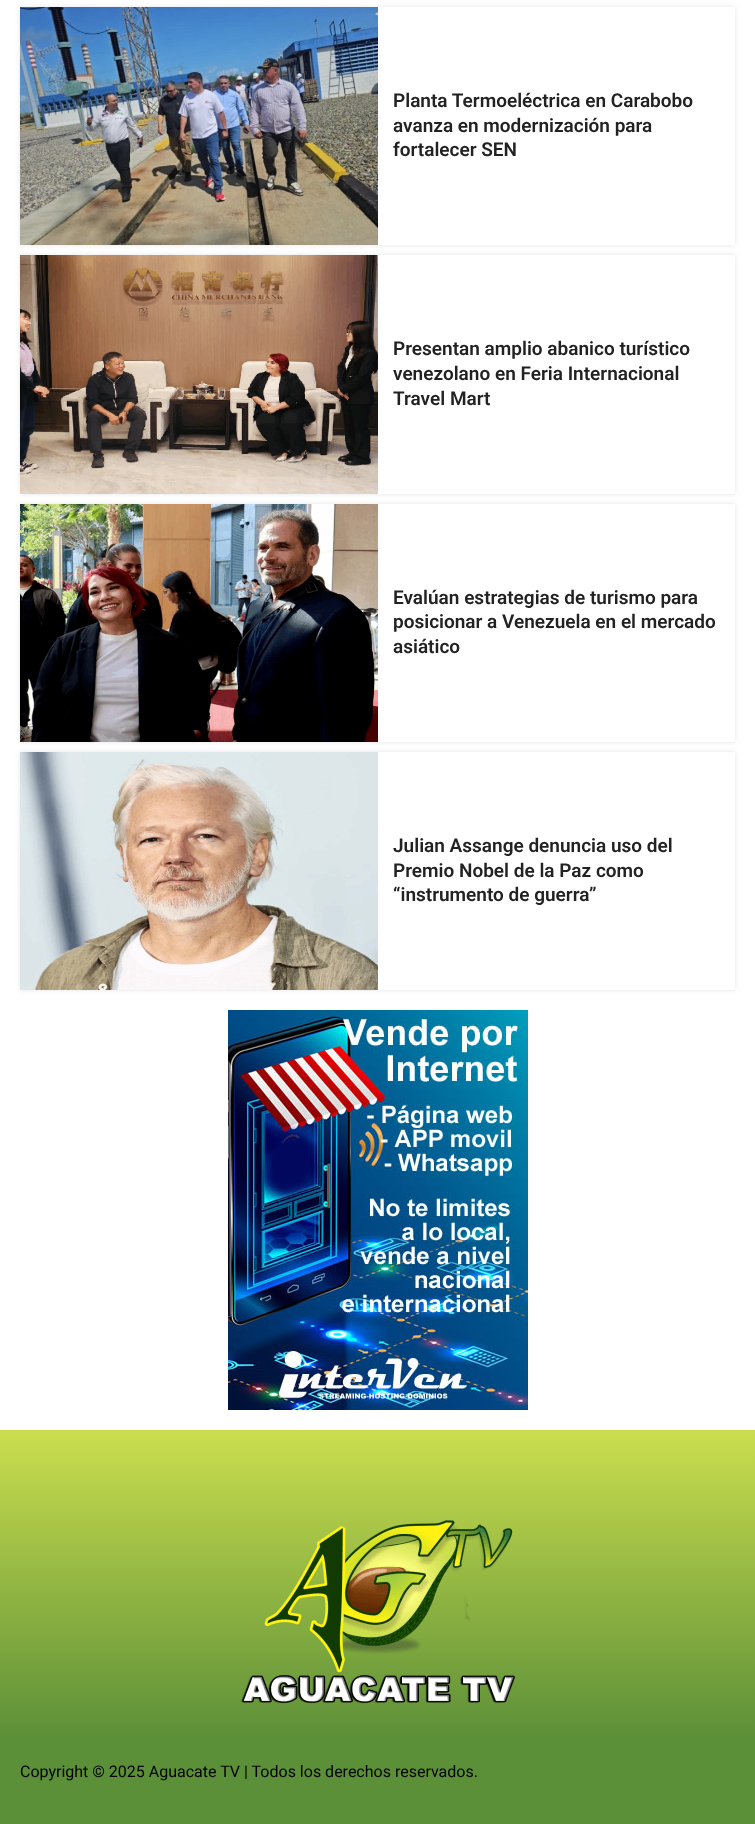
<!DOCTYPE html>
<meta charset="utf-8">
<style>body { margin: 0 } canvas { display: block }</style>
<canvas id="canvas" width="755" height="1824"></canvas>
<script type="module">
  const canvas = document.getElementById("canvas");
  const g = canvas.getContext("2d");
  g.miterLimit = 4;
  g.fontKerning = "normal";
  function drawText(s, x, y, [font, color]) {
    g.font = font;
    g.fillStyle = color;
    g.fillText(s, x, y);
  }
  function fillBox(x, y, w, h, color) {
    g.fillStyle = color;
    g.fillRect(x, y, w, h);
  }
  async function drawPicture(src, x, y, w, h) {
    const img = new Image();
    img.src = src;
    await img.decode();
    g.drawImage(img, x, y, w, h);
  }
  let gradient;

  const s1 = ["600 19px Roboto", "#222222"];
  const s2 = ["16px Roboto", "#000000"];

  fillBox(0, 0, 755, 1824, "#FFFFFF");
  g.save();
  g.beginPath();
  g.moveTo(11, 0);
  g.lineTo(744, 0);
  g.lineTo(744, 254);
  g.lineTo(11, 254);
  g.closePath();
  g.moveTo(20, 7);
  g.lineTo(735, 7);
  g.lineTo(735, 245);
  g.lineTo(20, 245);
  g.closePath();
  g.clip("evenodd");
  g.fillStyle = "rgba(0, 0, 0, 0.1)";
  g.filter = "blur(2.5px)";
  g.beginPath();
  g.rect(20, 7, 715, 238);
  g.fill();
  g.filter = "none";
  g.restore();
  await drawPicture("pic1.png", 20, 7, 358, 238);
  drawText("Planta Termoeléctrica en Carabobo", 393, 107, s1);
  drawText("avanza en modernización para", 393, 132, s1);
  drawText("fortalecer SEN", 393, 156, s1);
  g.save();
  g.beginPath();
  g.moveTo(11, 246);
  g.lineTo(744, 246);
  g.lineTo(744, 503);
  g.lineTo(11, 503);
  g.closePath();
  g.moveTo(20, 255);
  g.lineTo(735, 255);
  g.lineTo(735, 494);
  g.lineTo(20, 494);
  g.closePath();
  g.clip("evenodd");
  g.fillStyle = "rgba(0, 0, 0, 0.1)";
  g.filter = "blur(2.5px)";
  g.beginPath();
  g.rect(20, 255, 715, 239);
  g.fill();
  g.filter = "none";
  g.restore();
  await drawPicture("pic2.png", 20, 255, 358, 239);
  drawText("Presentan amplio abanico turístico", 393, 355, s1);
  drawText("venezolano en Feria Internacional", 393, 380, s1);
  drawText("Travel Mart", 393, 405, s1);
  g.save();
  g.beginPath();
  g.moveTo(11, 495);
  g.lineTo(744, 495);
  g.lineTo(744, 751);
  g.lineTo(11, 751);
  g.closePath();
  g.moveTo(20, 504);
  g.lineTo(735, 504);
  g.lineTo(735, 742);
  g.lineTo(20, 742);
  g.closePath();
  g.clip("evenodd");
  g.fillStyle = "rgba(0, 0, 0, 0.1)";
  g.filter = "blur(2.5px)";
  g.beginPath();
  g.rect(20, 504, 715, 238);
  g.fill();
  g.filter = "none";
  g.restore();
  await drawPicture("pic3.png", 20, 504, 358, 238);
  drawText("Evalúan estrategias de turismo para", 393, 604, s1);
  drawText("posicionar a Venezuela en el mercado", 393, 628, s1);
  drawText("asiático", 393, 653, s1);
  g.save();
  g.beginPath();
  g.moveTo(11, 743);
  g.lineTo(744, 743);
  g.lineTo(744, 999);
  g.lineTo(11, 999);
  g.closePath();
  g.moveTo(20, 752);
  g.lineTo(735, 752);
  g.lineTo(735, 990);
  g.lineTo(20, 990);
  g.closePath();
  g.clip("evenodd");
  g.fillStyle = "rgba(0, 0, 0, 0.1)";
  g.filter = "blur(2.5px)";
  g.beginPath();
  g.rect(20, 752, 715, 238);
  g.fill();
  g.filter = "none";
  g.restore();
  await drawPicture("pic4.png", 20, 752, 358, 238);
  drawText("Julian Assange denuncia uso del", 393, 852, s1);
  drawText("Premio Nobel de la Paz como", 393, 877, s1);
  drawText("“instrumento de guerra”", 393, 901, s1);
  await drawPicture("pic5.png", 228, 1010, 300, 400);
  gradient = g.createLinearGradient(378, 1430, 378, 1740);
  gradient.addColorStop(0, "#CBDE4E");
  gradient.addColorStop(1, "#5B8F38");
  g.fillStyle = gradient;
  g.fillRect(0, 1430, 755, 310);
  await drawPicture("pic6.png", 241, 1520, 274, 184);
  fillBox(0, 1740, 755, 84, "#5B8F38");
  drawText("Copyright © 2025 Aguacate TV | Todos los derechos reservados.", 20, 1777, s2);
</script>
